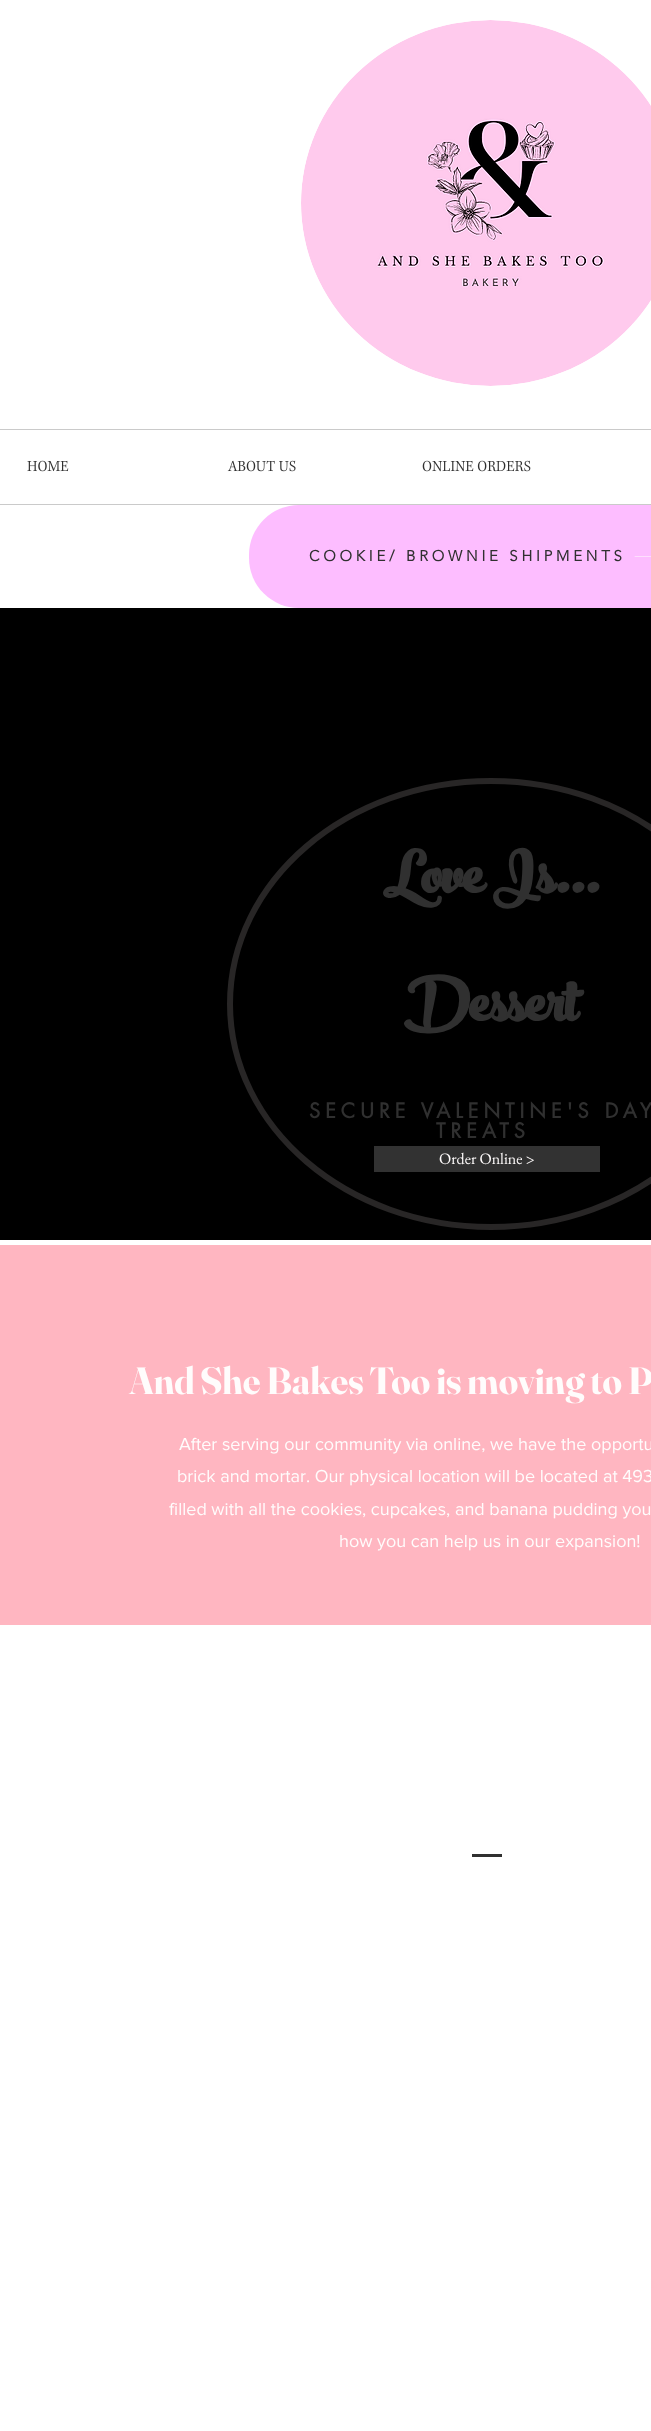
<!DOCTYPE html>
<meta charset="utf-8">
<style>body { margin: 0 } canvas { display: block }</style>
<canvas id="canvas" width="651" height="2431"></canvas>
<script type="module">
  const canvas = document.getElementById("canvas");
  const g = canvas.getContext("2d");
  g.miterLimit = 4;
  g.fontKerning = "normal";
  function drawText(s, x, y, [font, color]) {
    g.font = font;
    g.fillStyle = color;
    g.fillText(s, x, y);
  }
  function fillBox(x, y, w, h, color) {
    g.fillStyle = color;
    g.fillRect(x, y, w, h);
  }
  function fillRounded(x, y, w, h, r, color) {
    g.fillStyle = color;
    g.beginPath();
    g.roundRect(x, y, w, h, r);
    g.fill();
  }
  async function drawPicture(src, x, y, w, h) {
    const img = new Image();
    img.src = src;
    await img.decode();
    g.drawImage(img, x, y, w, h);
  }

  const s1 = ["bold 15px 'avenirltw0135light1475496'", "#303030"];
  const s2 = ["bold 88px 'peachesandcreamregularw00'", "#303030"];
  const s3 = ["bold 20px futura", "#303030"];
  const s4 = ["16px EB Garamond", "#FFFCFC"];
  const s5 = ["bold 38px Fraunces", "#FFFCFC"];
  const s6 = ["18px 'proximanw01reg'", "#FFFCFC"];

  fillBox(0, 0, 651, 2431, "#FFFFFF");
  await drawPicture("pic1.png", 301, 20, 350, 366);
  fillBox(0, 429, 651, 1, "#CACACA");
  fillBox(0, 504, 651, 1, "#CACACA");
  await drawPicture("pic2.png", 27, 460, 42, 12);
  await drawPicture("pic3.png", 227, 460, 69, 12);
  await drawPicture("pic4.png", 422, 460, 109, 12);
  fillRounded(249, 505, 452, 103, 50, "#FDBDFF");
  g.letterSpacing = "3.75px";
  drawText("COOKIE/ BROWNIE SHIPMENTS", 309, 561, s1);
  await drawPicture("pic5.png", 634, 556, 17, 1);
  fillBox(0, 608, 651, 632, "#000000");
  g.beginPath();
  g.moveTo(491, 781);
  g.bezierCurveTo(635, 781, 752, 881, 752, 1004);
  g.bezierCurveTo(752, 1127, 635, 1227, 491, 1227);
  g.bezierCurveTo(347, 1227, 230, 1127, 230, 1004);
  g.bezierCurveTo(230, 881, 347, 781, 491, 781);
  g.closePath();
  g.strokeStyle = "#282626";
  g.lineWidth = 6;
  g.stroke();
  g.letterSpacing = "0px";
  drawText("Love Is...", 383, 893, s2);
  drawText("Dessert", 404, 1021, s2);
  g.letterSpacing = "5px";
  drawText("SECURE VALENTINE'S DAY", 309, 1118, s3);
  drawText("TREATS", 436, 1138, s3);
  fillBox(374, 1146, 226, 26, "#323232");
  g.letterSpacing = "0px";
  drawText("Order Online >", 439, 1164, s4);
  fillBox(0, 1245, 651, 380, "#FFB6C1");
  drawText("And She Bakes Too is moving to P", 129, 1394, s5);
  drawText("After serving our community via online, we have the opportu", 179, 1450, s6);
  drawText("brick and mortar. Our physical location will be located at 493", 177, 1482, s6);
  drawText("filled with all the cookies, cupcakes, and banana pudding you", 169, 1515, s6);
  drawText("how you can help us in our expansion!", 339, 1547, s6);
  fillBox(472, 1854, 30, 3, "#303030");
</script>
